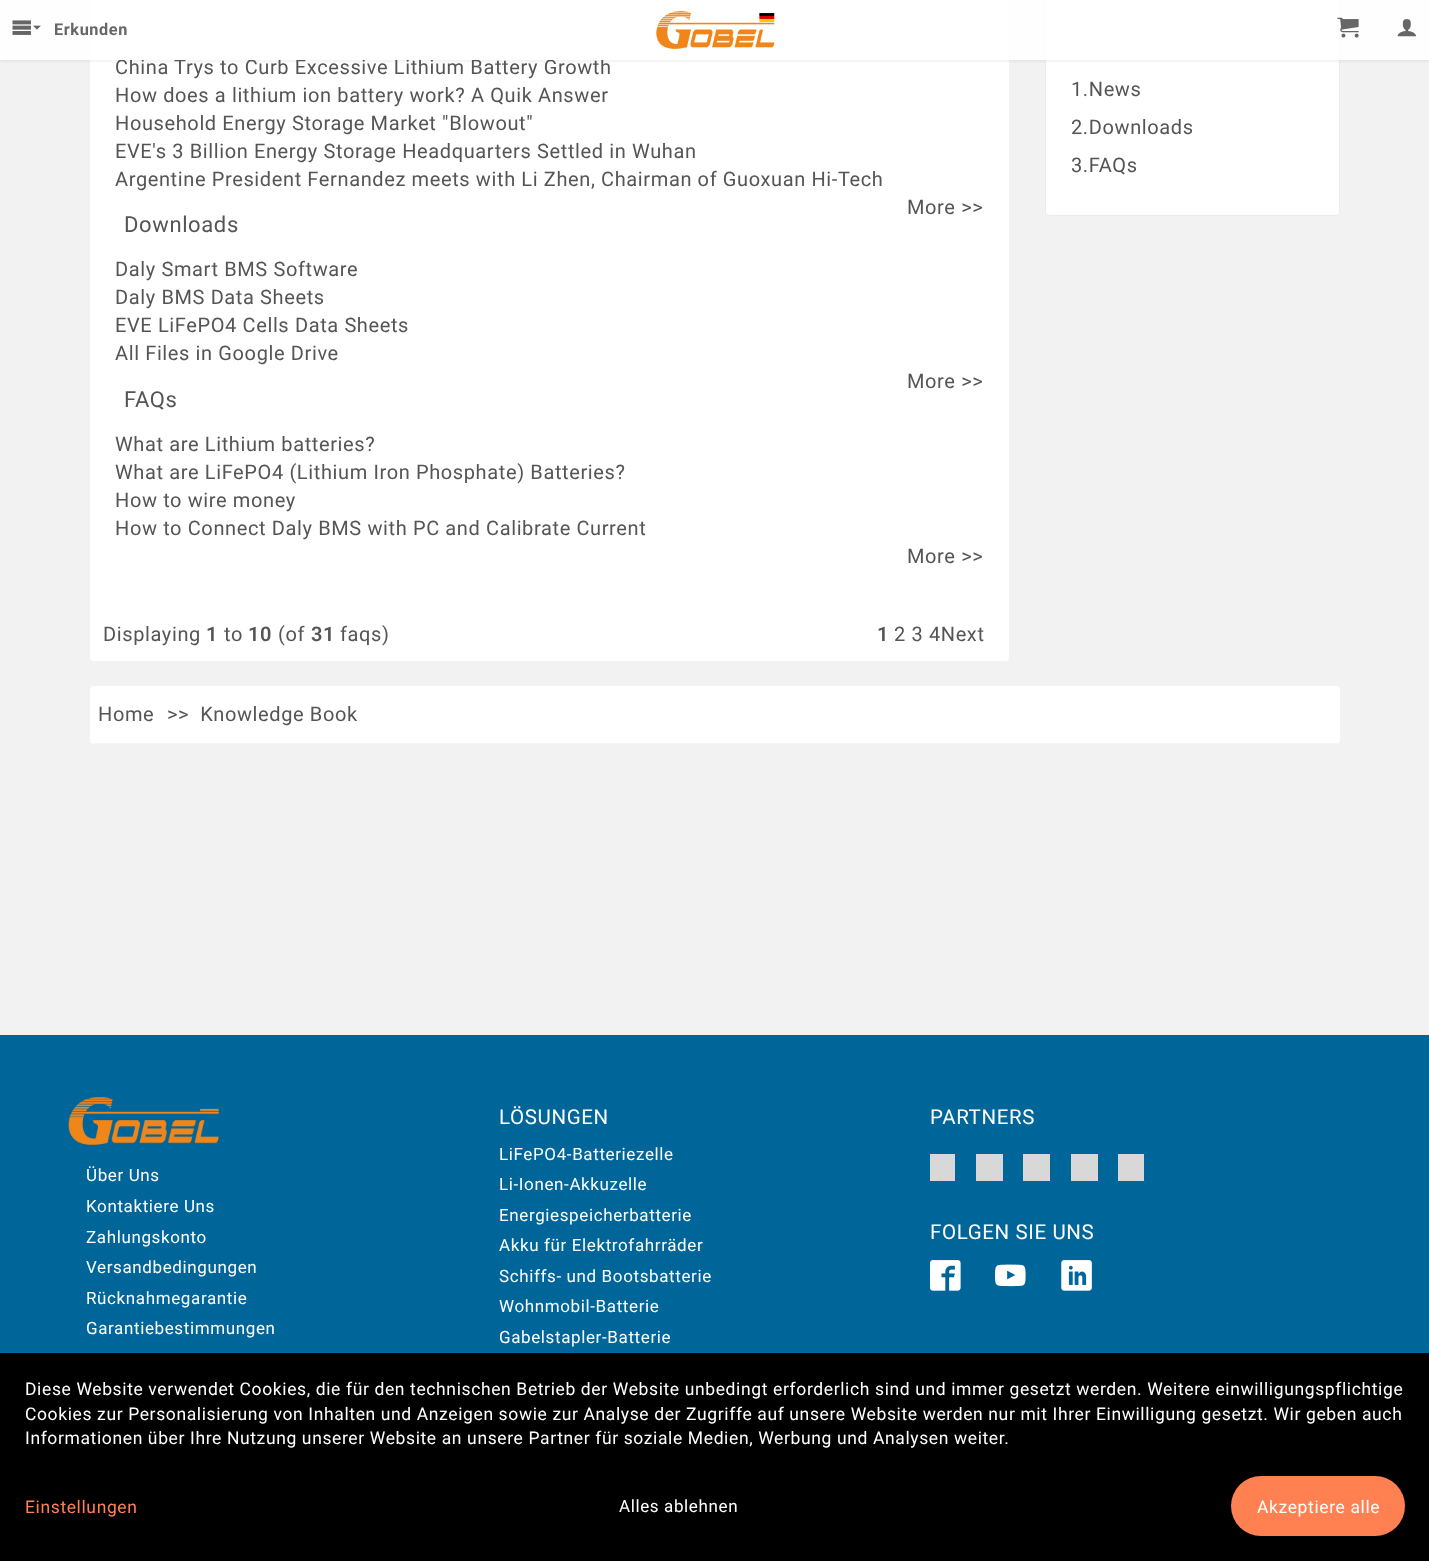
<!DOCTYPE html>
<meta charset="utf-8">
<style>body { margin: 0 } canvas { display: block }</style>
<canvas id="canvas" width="1429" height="1561"></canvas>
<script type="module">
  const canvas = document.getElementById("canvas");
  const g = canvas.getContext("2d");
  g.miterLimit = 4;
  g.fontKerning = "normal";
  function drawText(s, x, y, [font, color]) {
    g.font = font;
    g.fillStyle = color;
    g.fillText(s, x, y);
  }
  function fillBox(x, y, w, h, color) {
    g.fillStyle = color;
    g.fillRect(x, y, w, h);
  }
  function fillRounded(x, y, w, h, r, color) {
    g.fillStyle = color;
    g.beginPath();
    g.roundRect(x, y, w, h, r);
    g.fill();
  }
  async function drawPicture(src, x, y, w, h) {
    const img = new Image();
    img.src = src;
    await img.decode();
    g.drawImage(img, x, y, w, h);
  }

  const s1 = ["20px Roboto", "#555555"];
  const s2 = ["bold 16.25px Roboto", "#666666"];
  const s3 = ["22px Roboto", "#555555"];
  const s4 = ["600 20px Roboto", "#555555"];
  const s5 = ["17px Roboto", "#FFFFFF"];
  const s6 = ["20.5px Roboto", "#FFFFFF"];
  const s7 = ["17.5px Roboto", "#FFFFFF"];
  const s8 = ["17.5px Roboto", "#FF8152"];

  fillBox(0, 0, 1429, 1561, "#F2F2F2");
  fillRounded(90, -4, 919, 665, 4, "#FFFFFF");
  fillBox(1045, 0, 295, 51, "#F7F8F9");
  g.fillStyle = "#E9ECEF";
  g.beginPath();
  g.moveTo(1339, -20);
  g.lineTo(1340, -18);
  g.lineTo(1340, 51);
  g.lineTo(1339, 50);
  g.lineTo(1339, -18);
  g.lineTo(1338, -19);
  g.closePath();
  g.fill();
  g.fillStyle = "#EAEDF1";
  g.beginPath();
  g.moveTo(1340, 51);
  g.lineTo(1045, 51);
  g.lineTo(1046, 50);
  g.lineTo(1339, 50);
  g.closePath();
  g.fill();
  g.fillStyle = "#E9ECEF";
  g.beginPath();
  g.moveTo(1045, -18);
  g.lineTo(1045, 51);
  g.lineTo(1046, 50);
  g.lineTo(1046, -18);
  g.lineTo(1047, -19);
  g.lineTo(1046, -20);
  g.closePath();
  g.fill();
  g.fillStyle = "#FFFFFF";
  g.beginPath();
  g.roundRect(1045, 51, 295, 165, [0, 0, 4, 4]);
  g.fill();
  g.fillStyle = "#E9ECEF";
  g.beginPath();
  g.moveTo(1045, 51);
  g.lineTo(1340, 51);
  g.lineTo(1340, 212);
  g.bezierCurveTo(1340, 215, 1338, 216, 1336, 216);
  g.lineTo(1049, 216);
  g.bezierCurveTo(1047, 216, 1045, 215, 1045, 212);
  g.closePath();
  g.moveTo(1046, 51);
  g.lineTo(1339, 51);
  g.lineTo(1339, 212);
  g.bezierCurveTo(1339, 214, 1338, 215, 1336, 215);
  g.lineTo(1049, 215);
  g.bezierCurveTo(1047, 215, 1046, 214, 1046, 212);
  g.closePath();
  g.fill("evenodd");
  g.save();
  g.beginPath();
  g.rect(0, 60, 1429, 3);
  g.clip();
  g.fillStyle = "rgba(0, 0, 0, 0.1)";
  g.filter = "blur(3px)";
  g.beginPath();
  g.rect(0, 0, 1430, 60);
  g.fill();
  g.filter = "none";
  g.restore();
  g.letterSpacing = "0.62px";
  drawText("China Trys to Curb Excessive Lithium Battery Growth", 115, 74, s1);
  fillBox(0, 0, 1429, 60, "rgba(255, 255, 255, 0.9)");
  await drawPicture("pic1.png", 12, 20, 29, 15);
  drawText("Erkunden", 54, 35, s2);
  await drawPicture("pic2.png", 656, 11, 119, 38);
  await drawPicture("pic3.png", 1337, 17, 22, 21);
  await drawPicture("pic4.png", 1397, 19, 19, 18);
  drawText("How does a lithium ion battery work? A Quik Answer", 115, 102, s1);
  drawText("Household Energy Storage Market \"Blowout\"", 115, 130, s1);
  drawText("EVE's 3 Billion Energy Storage Headquarters Settled in Wuhan", 115, 158, s1);
  drawText("Argentine President Fernandez meets with Li Zhen, Chairman of Guoxuan Hi-Tech", 115, 186, s1);
  drawText("More >>", 907, 214, s1);
  drawText("Downloads", 124, 232, s3);
  drawText("Daly Smart BMS Software", 115, 276, s1);
  drawText("Daly BMS Data Sheets", 115, 304, s1);
  drawText("EVE LiFePO4 Cells Data Sheets", 115, 332, s1);
  drawText("All Files in Google Drive", 115, 360, s1);
  drawText("More >>", 907, 388, s1);
  drawText("FAQs", 124, 407, s3);
  drawText("What are Lithium batteries?", 115, 451, s1);
  drawText("What are LiFePO4 (Lithium Iron Phosphate) Batteries?", 115, 479, s1);
  drawText("How to wire money", 115, 507, s1);
  drawText("How to Connect Daly BMS with PC and Calibrate Current", 115, 535, s1);
  drawText("More >>", 907, 563, s1);
  drawText("Displaying", 103, 641, s1);
  drawText("1", 206, 641, s4);
  drawText("to", 224, 641, s1);
  drawText("10", 248, 641, s4);
  drawText("(of", 278, 641, s1);
  drawText("31", 311, 641, s4);
  drawText("faqs)", 340, 641, s1);
  drawText("1", 877, 641, s4);
  drawText("2 3 4Next", 894, 641, s1);
  drawText("1.News", 1071, 96, s1);
  drawText("2.Downloads", 1071, 134, s1);
  drawText("3.FAQs", 1071, 172, s1);
  fillRounded(90, 686, 1250, 58, 4, "#FFFFFF");
  fillBox(93, 743, 1246, 1, "#F6F6F6");
  drawText("Home", 98, 721, s1);
  drawText(">>  Knowledge Book", 167, 721, s1);
  fillBox(0, 1035, 1429, 318, "#006699");
  await drawPicture("pic5.png", 68, 1097, 151, 48);
  drawText("Über Uns", 86, 1181, s5);
  drawText("Kontaktiere Uns", 86, 1212, s5);
  drawText("Zahlungskonto", 86, 1243, s5);
  drawText("Versandbedingungen", 86, 1273, s5);
  drawText("Rücknahmegarantie", 86, 1304, s5);
  drawText("Garantiebestimmungen", 86, 1334, s5);
  drawText("LÖSUNGEN", 499, 1124, s6);
  drawText("LiFePO4-Batteriezelle", 499, 1160, s5);
  drawText("Li-Ionen-Akkuzelle", 499, 1190, s5);
  drawText("Energiespeicherbatterie", 499, 1221, s5);
  drawText("Akku für Elektrofahrräder", 499, 1251, s5);
  drawText("Schiffs- und Bootsbatterie", 499, 1282, s5);
  drawText("Wohnmobil-Batterie", 499, 1312, s5);
  drawText("Gabelstapler-Batterie", 499, 1343, s5);
  drawText("PARTNERS", 930, 1124, s6);
  fillBox(930, 1154, 25, 27, "#D8D8D8");
  fillBox(976, 1154, 27, 27, "#D8D8D8");
  fillBox(1023, 1154, 27, 27, "#D8D8D8");
  fillBox(1071, 1154, 27, 27, "#D8D8D8");
  fillBox(1118, 1154, 26, 27, "#D8D8D8");
  drawText("FOLGEN SIE UNS", 930, 1239, s6);
  await drawPicture("pic6.png", 930, 1260, 31, 31);
  await drawPicture("pic7.png", 995, 1264, 31, 23);
  await drawPicture("pic8.png", 1061, 1260, 31, 31);
  fillBox(0, 1353, 1429, 208, "#000000");
  drawText("Diese Website verwendet Cookies, die für den technischen Betrieb der Website unbedingt erforderlich sind und immer gesetzt werden. Weitere einwilligungspflichtige", 25, 1395, s7);
  drawText("Cookies zur Personalisierung von Inhalten und Anzeigen sowie zur Analyse der Zugriffe auf unsere Website werden nur mit Ihrer Einwilligung gesetzt. Wir geben auch", 25, 1420, s7);
  drawText("Informationen über Ihre Nutzung unserer Website an unsere Partner für soziale Medien, Werbung und Analysen weiter.", 25, 1444, s7);
  drawText("Einstellungen", 25, 1513, s8);
  drawText("Alles ablehnen", 619, 1512, s5);
  fillRounded(1231, 1476, 174, 60, 30, "#FF8152");
  drawText("Akzeptiere alle", 1257, 1513, s7);
</script>
